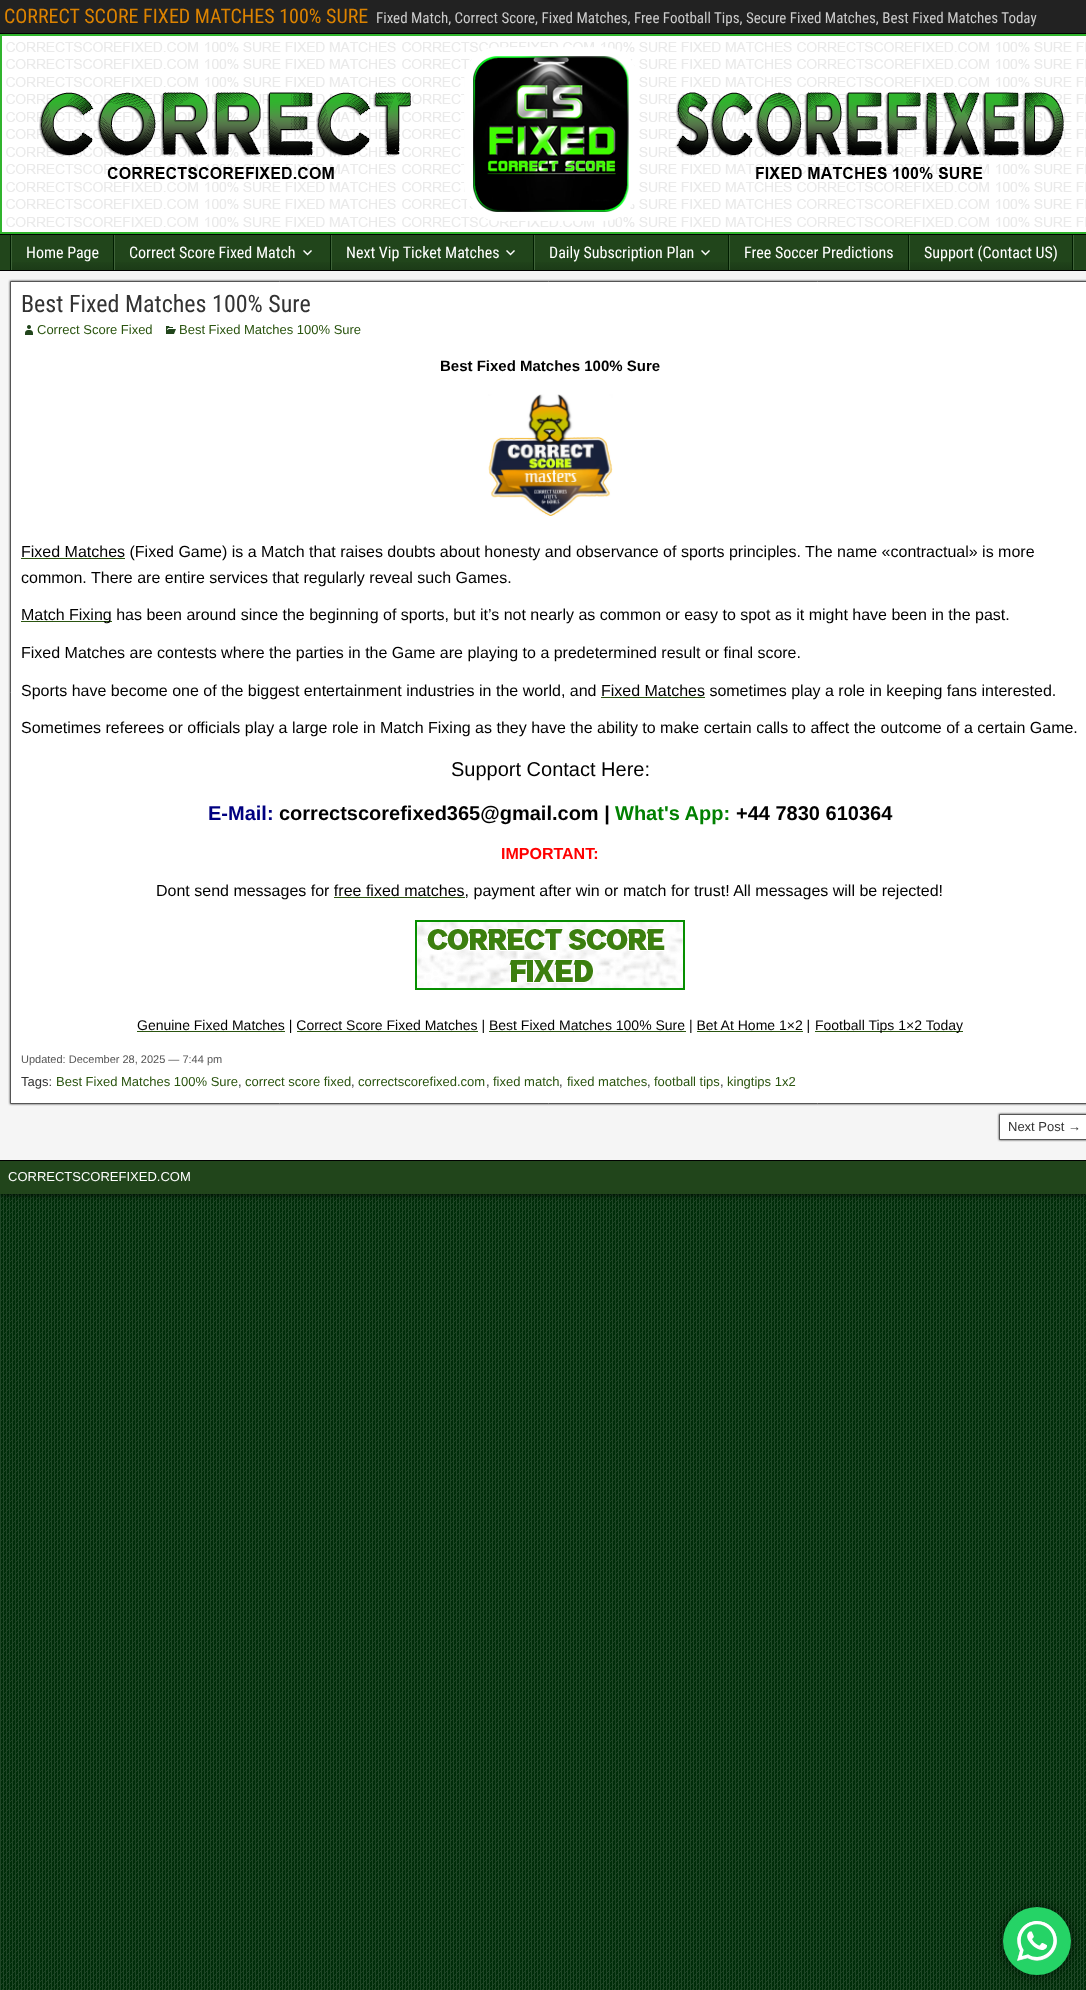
<!DOCTYPE html>
<meta charset="utf-8">
<style>body { margin: 0 } canvas { display: block }</style>
<canvas id="canvas" width="1086" height="1990"></canvas>
<script type="module">
  const canvas = document.getElementById("canvas");
  const g = canvas.getContext("2d");
  g.miterLimit = 4;
  g.fontKerning = "normal";
  function drawText(s, x, y, [font, color]) {
    g.font = font;
    g.fillStyle = color;
    g.fillText(s, x, y);
  }
  function fillBox(x, y, w, h, color) {
    g.fillStyle = color;
    g.fillRect(x, y, w, h);
  }
  async function drawPicture(src, x, y, w, h) {
    const img = new Image();
    img.src = src;
    await img.decode();
    g.drawImage(img, x, y, w, h);
  }
  let gradient;

  const s1 = ["20px Roboto Condensed", "#DC8300"];
  const s2 = ["15px Roboto Condensed", "#CCCCCC"];
  const s3 = ["16px Roboto Condensed", "#FFFFFF"];
  const s4 = ["24px Roboto Condensed", "#333333"];
  const s5 = ["13px Liberation Sans", "#2A540F"];
  const s6 = ["bold 15px Arimo", "#000000"];
  const s7 = ["16px Liberation Sans", "#000000"];
  const s8 = ["20px Arimo", "#000000"];
  const s9 = ["bold 20px Arimo", "#000080"];
  const s10 = ["bold 20px Arimo", "#000000"];
  const s11 = ["bold 20px Arimo", "#008000"];
  const s12 = ["bold 16px Arimo", "#FF0000"];
  const s13 = ["16px Arimo", "#000000"];
  const s14 = ["14px Arimo", "#000000"];
  const s15 = ["11px Liberation Sans", "#555555"];
  const s16 = ["13px Liberation Sans", "#333333"];
  const s17 = ["13px Liberation Sans", "#FFFFFF"];

  fillBox(0, 0, 1086, 1990, "#002D09");
  await drawPicture("pic1.png", 0, 1194, 1086, 796);
  g.fillStyle = "#000000";
  g.filter = "blur(3px)";
  g.beginPath();
  g.rect(0, 0, 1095, 1194);
  g.fill();
  g.filter = "none";
  fillBox(0, 0, 1086, 33, "#222222");
  fillBox(0, 33, 5, 1, "#000000");
  drawText("CORRECT SCORE FIXED MATCHES 100% SURE", 4, 23, s1);
  drawText("Fixed Match, Correct Score, Fixed Matches, Free Football Tips, Secure Fixed Matches, Best Fixed Matches Today", 376, 23, s2);
  await drawPicture("pic2.png", 0, 34, 1086, 200);
  fillBox(0, 234, 5, 1, "#000000");
  fillBox(0, 235, 1086, 35, "#21451B");
  fillBox(0, 270, 5, 1, "#000000");
  fillBox(1073, 235, 1, 35, "#3F6339");
  fillBox(10, 235, 1, 35, "#001D00");
  gradient = g.createLinearGradient(63, 235, 63, 270);
  gradient.addColorStop(0.7, "#21451B");
  gradient.addColorStop(1, "#1C3B17");
  g.fillStyle = gradient;
  g.fillRect(12, 262, 101, 8);
  fillBox(113, 235, 1, 35, "#001D00");
  fillBox(11, 235, 1, 35, "#3F6339");
  drawText("Home Page", 26, 258, s3);
  gradient = g.createLinearGradient(223, 235, 223, 270);
  gradient.addColorStop(0.7, "#21451B");
  gradient.addColorStop(1, "#1C3B17");
  g.fillStyle = gradient;
  g.fillRect(115, 262, 215, 8);
  fillBox(330, 235, 1, 35, "#001D00");
  fillBox(114, 235, 1, 35, "#3F6339");
  drawText("Correct Score Fixed Match", 129, 258, s3);
  await drawPicture("pic3.png", 303, 250, 9, 6);
  gradient = g.createLinearGradient(433, 235, 433, 270);
  gradient.addColorStop(0.7, "#21451B");
  gradient.addColorStop(1, "#1C3B17");
  g.fillStyle = gradient;
  g.fillRect(332, 262, 201, 8);
  fillBox(533, 235, 1, 35, "#001D00");
  fillBox(331, 235, 1, 35, "#3F6339");
  drawText("Next Vip Ticket Matches", 346, 258, s3);
  await drawPicture("pic3.png", 506, 250, 9, 6);
  gradient = g.createLinearGradient(632, 235, 632, 270);
  gradient.addColorStop(0.7, "#21451B");
  gradient.addColorStop(1, "#1C3B17");
  g.fillStyle = gradient;
  g.fillRect(535, 262, 193, 8);
  fillBox(728, 235, 1, 35, "#001D00");
  fillBox(534, 235, 1, 35, "#3F6339");
  drawText("Daily Subscription Plan", 549, 258, s3);
  await drawPicture("pic3.png", 701, 250, 9, 6);
  gradient = g.createLinearGradient(819, 235, 819, 270);
  gradient.addColorStop(0.7, "#21451B");
  gradient.addColorStop(1, "#1C3B17");
  g.fillStyle = gradient;
  g.fillRect(730, 262, 178, 8);
  fillBox(908, 235, 1, 35, "#001D00");
  fillBox(729, 235, 1, 35, "#3F6339");
  drawText("Free Soccer Predictions", 744, 258, s3);
  gradient = g.createLinearGradient(991, 235, 991, 270);
  gradient.addColorStop(0.7, "#21451B");
  gradient.addColorStop(1, "#1C3B17");
  g.fillStyle = gradient;
  g.fillRect(910, 262, 162, 8);
  fillBox(1072, 235, 1, 35, "#001D00");
  fillBox(909, 235, 1, 35, "#3F6339");
  drawText("Support (Contact US)", 924, 258, s3);
  fillBox(0, 271, 1086, 889, "#F5F5F5");
  g.fillStyle = "#333333";
  g.filter = "blur(1px)";
  g.beginPath();
  g.rect(10, 281, 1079, 823);
  g.fill();
  g.filter = "none";
  g.fillStyle = "#FFFFFF";
  g.beginPath();
  g.rect(10.5, 281.5, 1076, 822);
  g.fill();
  g.strokeStyle = "#555555";
  g.stroke();
  drawText("Best Fixed Matches 100% Sure", 21, 312, s4);
  await drawPicture("pic4.png", 25, 325, 8, 10);
  drawText("Correct Score Fixed", 37, 334, s5);
  await drawPicture("pic5.png", 166, 326, 10, 8);
  drawText("Best Fixed Matches 100% Sure", 179, 334, s5);
  drawText("Best Fixed Matches 100% Sure", 440, 371, s6);
  await drawPicture("pic6.png", 488, 394, 125, 122);
  fillBox(21, 558, 104, 1, "#2A540F");
  drawText("Fixed Matches (Fixed Game) is a Match that raises doubts about honesty and observance of sports principles. The name «contractual» is more", 21, 557, s7);
  drawText("common. There are entire services that regularly reveal such Games.", 21, 583, s7);
  fillBox(21, 621, 91, 1, "#2A540F");
  drawText("Match Fixing has been around since the beginning of sports, but it’s not nearly as common or easy to spot as it might have been in the past.", 21, 620, s7);
  drawText("Fixed Matches are contests where the parties in the Game are playing to a predetermined result or final score.", 21, 658, s7);
  drawText("Sports have become one of the biggest entertainment industries in the world, and Fixed Matches sometimes play a role in keeping fans interested.", 21, 696, s7);
  fillBox(601, 697, 104, 1, "#2A540F");
  drawText("Sometimes referees or officials play a large role in Match Fixing as they have the ability to make certain calls to affect the outcome of a certain Game.", 21, 733, s7);
  drawText("Support Contact Here:", 451, 776, s8);
  drawText("E-Mail:", 208, 820, s9);
  drawText("correctscorefixed365@gmail.com |", 279, 820, s10);
  drawText("What's App:", 615, 820, s11);
  drawText("+44 7830 610364", 736, 820, s10);
  drawText("IMPORTANT:", 501, 859, s12);
  drawText("Dont send messages for free fixed matches, payment after win or match for trust! All messages will be rejected!", 156, 896, s13);
  fillBox(334, 897, 131, 1, "#2A540F");
  await drawPicture("pic7.png", 415, 920, 270, 70);
  fillBox(137, 1031, 148, 1, "#2A540F");
  drawText("Genuine Fixed Matches | Correct Score Fixed Matches | Best Fixed Matches 100% Sure | Bet At Home 1×2 |", 137, 1030, s14);
  fillBox(297, 1031, 181, 1, "#2A540F");
  fillBox(489, 1031, 197, 1, "#2A540F");
  fillBox(697, 1031, 106, 1, "#2A540F");
  fillBox(815, 1031, 148, 1, "#2A540F");
  drawText("Football Tips 1×2 Today", 815, 1030, s14);
  drawText("Updated: December 28, 2025 — 7:44 pm", 21, 1063, s15);
  drawText("Tags:", 21, 1086, s16);
  drawText("Best Fixed Matches 100% Sure", 56, 1086, s5);
  drawText(",", 238, 1086, s16);
  drawText("correct score fixed", 245, 1086, s5);
  drawText(",", 351, 1086, s16);
  drawText("correctscorefixed.com", 358, 1086, s5);
  drawText(",", 486, 1086, s16);
  drawText("fixed match", 493, 1086, s5);
  drawText(",", 559, 1086, s16);
  drawText("fixed matches", 567, 1086, s5);
  drawText(",", 647, 1086, s16);
  drawText("football tips", 654, 1086, s5);
  drawText(",", 720, 1086, s16);
  drawText("kingtips 1x2", 727, 1086, s5);
  g.fillStyle = "#333333";
  g.filter = "blur(1px)";
  g.beginPath();
  g.rect(999, 1114, 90, 26);
  g.fill();
  g.filter = "none";
  g.fillStyle = "#FFFFFF";
  g.beginPath();
  g.rect(999.5, 1114.5, 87, 25);
  g.fill();
  g.stroke();
  drawText("Next Post →", 1008, 1131, s16);
  fillBox(0, 1161, 1086, 33, "#21451B");
  fillBox(0, 1160, 5, 1, "#000000");
  drawText("CORRECTSCOREFIXED.COM", 8, 1181, s17);
  g.fillStyle = "rgba(0, 0, 0, 0.5)";
  g.filter = "blur(5.5px)";
  g.beginPath();
  g.roundRect(1003, 1907, 68, 68, 34);
  g.fill();
  g.filter = "none";
  g.fillStyle = "#25D366";
  g.beginPath();
  g.arc(1037, 1941, 34, 0, Math.PI * 2);
  g.fill();
  await drawPicture("pic8.png", 1017, 1921, 40, 40);
</script>
